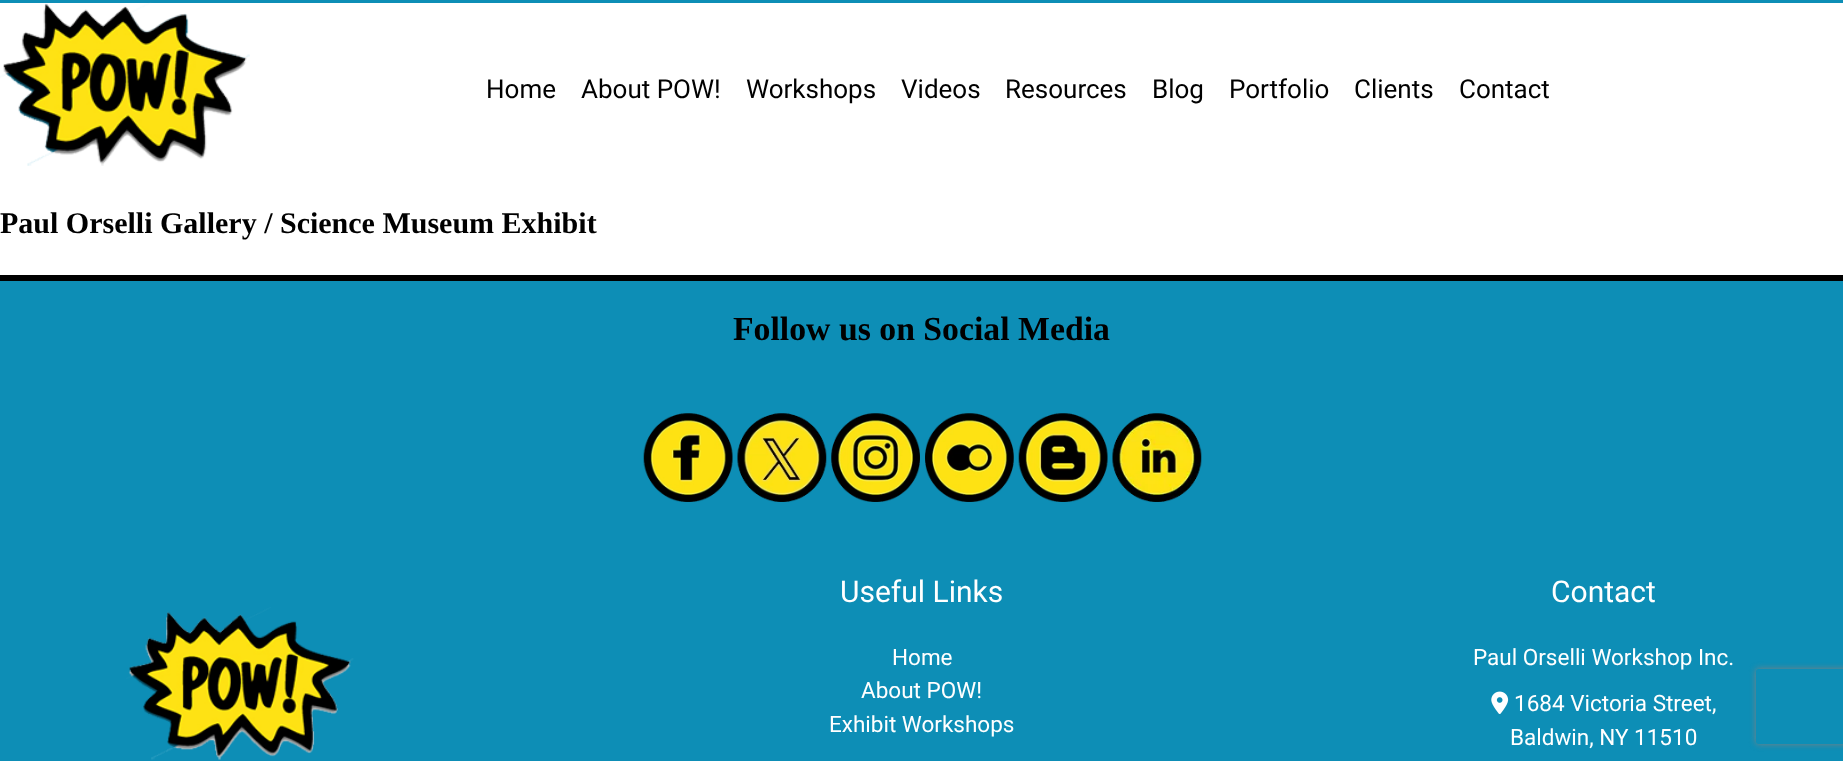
<!DOCTYPE html>
<meta charset="utf-8">
<style>body { margin: 0 } canvas { display: block }</style>
<canvas id="canvas" width="1843" height="761"></canvas>
<script type="module">
  const canvas = document.getElementById("canvas");
  const g = canvas.getContext("2d");
  g.miterLimit = 4;
  g.fontKerning = "normal";
  function drawText(s, x, y, [font, color]) {
    g.font = font;
    g.fillStyle = color;
    g.fillText(s, x, y);
  }
  function fillBox(x, y, w, h, color) {
    g.fillStyle = color;
    g.fillRect(x, y, w, h);
  }
  async function drawPicture(src, x, y, w, h) {
    const img = new Image();
    img.src = src;
    await img.decode();
    g.drawImage(img, x, y, w, h);
  }

  const s1 = ["26px Roboto", "#000000"];
  const s2 = ["bold 30px Liberation Serif", "#000000"];
  const s3 = ["bold 33.75px Liberation Serif", "#000000"];
  const s4 = ["30px Roboto", "#FFFFFF"];
  const s5 = ["22.5px Roboto", "#FFFFFF"];

  fillBox(0, 0, 1843, 761, "#FFFFFF");
  fillBox(0, 0, 1843, 3, "#0D8EB6");
  await drawPicture("pic1.png", 0, 2, 250, 164);
  drawText("Home", 486, 98, s1);
  drawText("About POW!", 581, 98, s1);
  drawText("Workshops", 746, 98, s1);
  drawText("Videos", 901, 98, s1);
  drawText("Resources", 1005, 98, s1);
  drawText("Blog", 1152, 98, s1);
  drawText("Portfolio", 1229, 98, s1);
  drawText("Clients", 1354, 98, s1);
  drawText("Contact", 1459, 98, s1);
  drawText("Paul Orselli Gallery / Science Museum Exhibit", 0, 233, s2);
  fillBox(0, 281, 1843, 480, "#0D8EB6");
  fillBox(0, 275, 1843, 6, "#000000");
  drawText("Follow us on Social Media", 733, 340, s3);
  await drawPicture("pic2.png", 643, 413, 90, 89);
  await drawPicture("pic3.png", 737, 413, 90, 89);
  await drawPicture("pic4.png", 831, 413, 89, 89);
  await drawPicture("pic5.png", 925, 413, 89, 89);
  await drawPicture("pic6.png", 1018, 413, 90, 89);
  await drawPicture("pic7.png", 1112, 413, 90, 89);
  await drawPicture("pic8.png", 126, 607, 228, 153);
  drawText("Useful Links", 840, 602, s4);
  drawText("Home", 892, 665, s5);
  drawText("About POW!", 861, 698, s5);
  drawText("Exhibit Workshops", 829, 732, s5);
  drawText("Contact", 1551, 602, s4);
  drawText("Paul Orselli Workshop Inc.", 1473, 665, s5);
  await drawPicture("pic9.png", 1491, 691, 18, 23);
  drawText("1684 Victoria Street,", 1514, 711, s5);
  drawText("Baldwin, NY 11510", 1510, 745, s5);
  g.save();
  g.beginPath();
  g.moveTo(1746, 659);
  g.lineTo(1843, 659);
  g.lineTo(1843, 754);
  g.lineTo(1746, 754);
  g.closePath();
  g.moveTo(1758.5, 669);
  g.lineTo(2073.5, 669);
  g.bezierCurveTo(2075, 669, 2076, 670, 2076, 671.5);
  g.lineTo(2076, 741.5);
  g.bezierCurveTo(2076, 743, 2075, 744, 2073.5, 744);
  g.lineTo(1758.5, 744);
  g.bezierCurveTo(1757, 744, 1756, 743, 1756, 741.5);
  g.lineTo(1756, 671.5);
  g.bezierCurveTo(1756, 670, 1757, 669, 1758.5, 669);
  g.closePath();
  g.clip("evenodd");
  g.fillStyle = "#808080";
  g.filter = "blur(3px)";
  g.beginPath();
  g.roundRect(1756, 669, 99, 75, 2.5);
  g.fill();
  g.filter = "none";
  g.restore();
</script>
